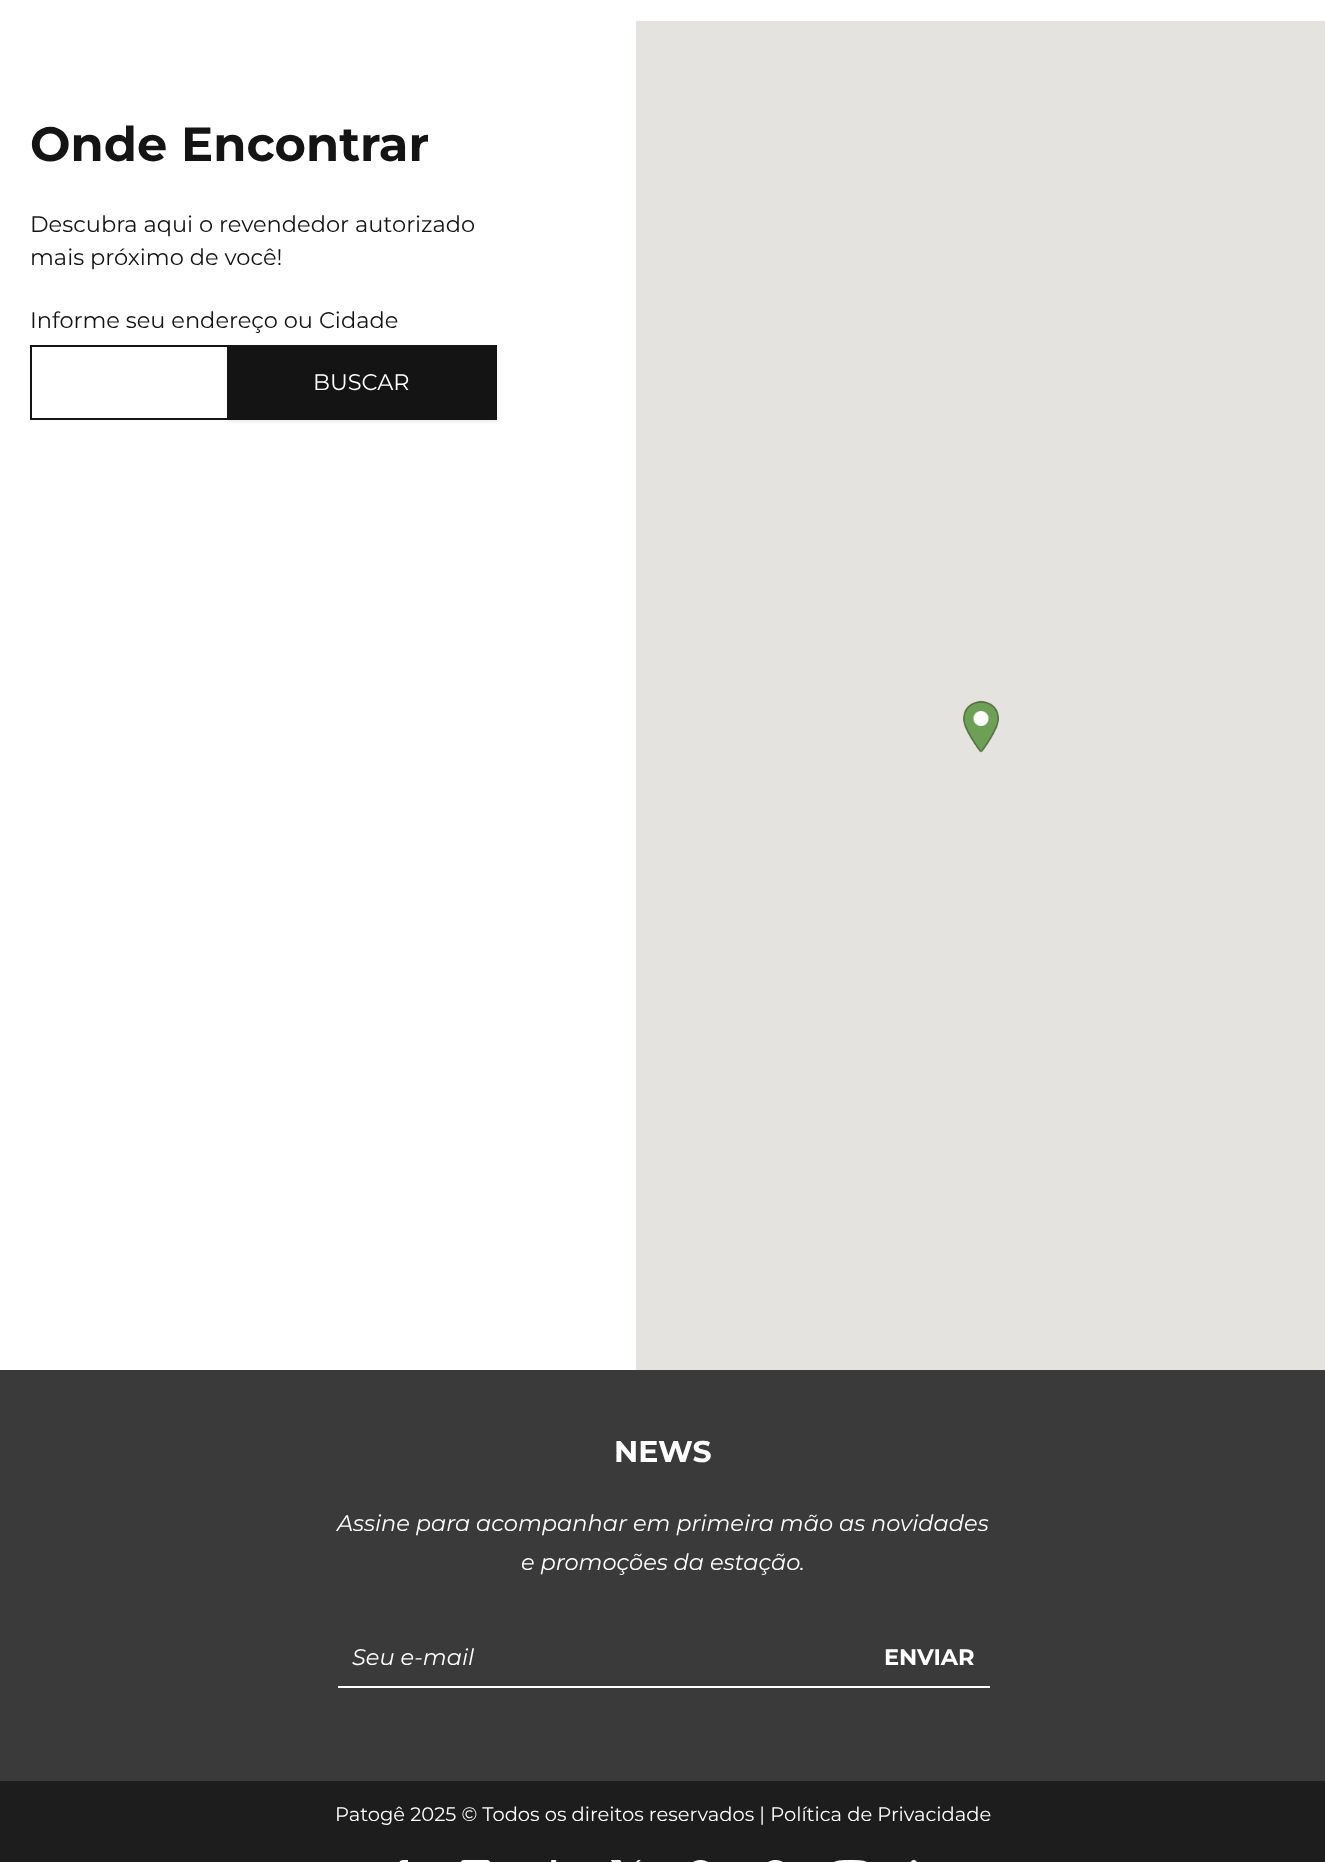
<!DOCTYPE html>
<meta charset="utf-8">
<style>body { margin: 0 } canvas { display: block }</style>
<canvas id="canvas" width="1325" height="1862"></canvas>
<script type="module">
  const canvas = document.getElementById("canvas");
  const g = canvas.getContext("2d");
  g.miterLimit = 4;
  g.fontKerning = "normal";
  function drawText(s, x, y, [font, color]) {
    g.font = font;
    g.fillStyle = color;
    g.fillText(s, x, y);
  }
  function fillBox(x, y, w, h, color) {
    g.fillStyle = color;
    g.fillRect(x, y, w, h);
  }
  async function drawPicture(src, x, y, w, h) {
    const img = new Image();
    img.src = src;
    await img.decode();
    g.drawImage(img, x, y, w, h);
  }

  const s1 = ["bold 48px Montserrat", "#151414"];
  const s2 = ["22.5px Montserrat", "#151414"];
  const s3 = ["22.5px Montserrat", "#FFFFFF"];
  const s4 = ["bold 30px Montserrat", "#FFFFFF"];
  const s5 = ["italic 22.5px Montserrat", "#FFFFFF"];
  const s6 = ["bold 22.5px Montserrat", "#FFFFFF"];
  const s7 = ["19.5px Montserrat", "#FFFFFF"];

  fillBox(0, 0, 1325, 1862, "#FFFFFF");
  drawText("Onde Encontrar", 30, 161, s1);
  drawText("Descubra aqui o revendedor autorizado", 30, 232, s2);
  drawText("mais próximo de você!", 30, 265, s2);
  drawText("Informe seu endereço ou Cidade", 30, 328, s2);
  g.strokeStyle = "#151414";
  g.lineWidth = 2;
  g.strokeRect(31, 346, 465, 73);
  g.fillStyle = "rgba(64, 64, 64, 0.1)";
  g.filter = "blur(1.5px)";
  g.beginPath();
  g.rect(227, 347, 270, 75);
  g.fill();
  g.filter = "none";
  fillBox(227, 347, 270, 73, "#151414");
  drawText("BUSCAR", 313, 390, s3);
  fillBox(636, 21, 689, 1349, "#E5E3DF");
  await drawPicture("pic1.png", 963, 700, 36, 53);
  fillBox(0, 1370, 1325, 411, "#3B3A3A");
  drawText("NEWS", 614, 1462, s4);
  drawText("Assine para acompanhar em primeira mão as novidades", 337, 1531, s5);
  drawText("e promoções da estação.", 521, 1570, s5);
  fillBox(338, 1686, 652, 2, "#FFFFFF");
  drawText("Seu e-mail", 352, 1665, s5);
  drawText("ENVIAR", 884, 1665, s6);
  fillBox(0, 1781, 1325, 81, "#1E1D1D");
  drawText("Patogê 2025 © Todos os direitos reservados | Política de Privacidade", 335, 1821, s7);
  await drawPicture("pic2.png", 399, 1860, 9, 2);
  await drawPicture("pic3.png", 461, 1860, 30, 2);
  await drawPicture("pic4.png", 551, 1860, 6, 2);
  await drawPicture("pic5.png", 611, 1860, 30, 2);
  await drawPicture("pic6.png", 693, 1860, 15, 2);
  await drawPicture("pic7.png", 768, 1860, 15, 2);
  await drawPicture("pic8.png", 834, 1860, 33, 2);
  await drawPicture("pic9.png", 911, 1860, 6, 2);
</script>
